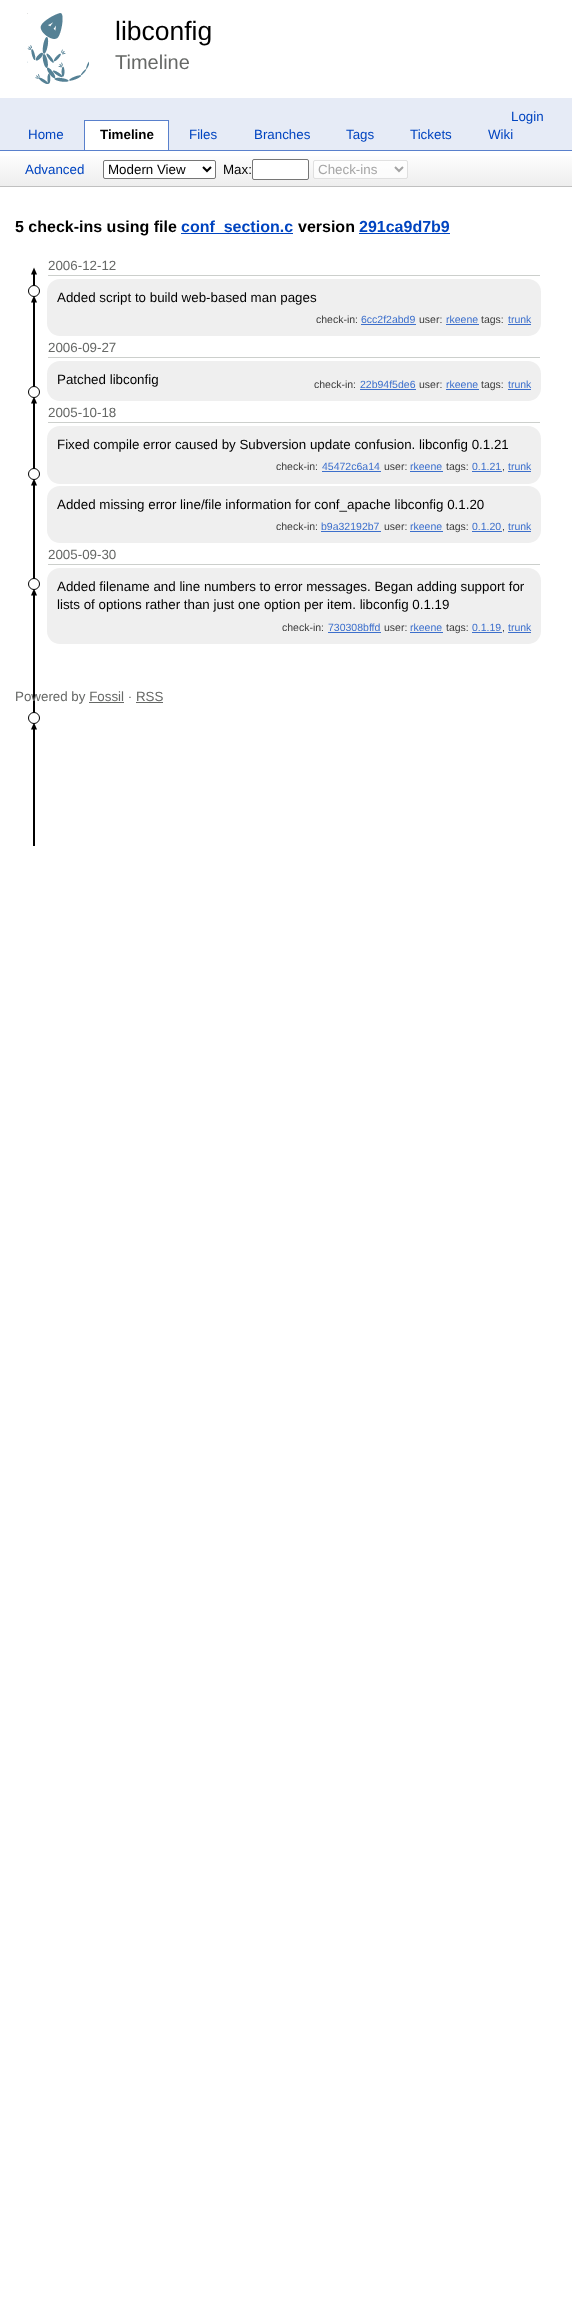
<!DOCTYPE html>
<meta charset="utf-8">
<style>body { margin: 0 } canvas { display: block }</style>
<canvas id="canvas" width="572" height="2309"></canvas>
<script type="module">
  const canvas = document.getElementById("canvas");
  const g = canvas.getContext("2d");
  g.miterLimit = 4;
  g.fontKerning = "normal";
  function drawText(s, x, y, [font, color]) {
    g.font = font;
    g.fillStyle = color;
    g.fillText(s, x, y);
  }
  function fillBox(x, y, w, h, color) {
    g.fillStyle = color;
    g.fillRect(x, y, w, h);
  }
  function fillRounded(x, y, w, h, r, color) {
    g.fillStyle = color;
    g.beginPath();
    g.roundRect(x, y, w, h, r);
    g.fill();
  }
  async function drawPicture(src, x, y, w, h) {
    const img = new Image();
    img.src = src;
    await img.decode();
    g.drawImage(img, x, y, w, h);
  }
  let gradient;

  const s1 = ["26.5px Liberation Sans", "#000000"];
  const s2 = ["20px Liberation Sans", "#666866"];
  const s3 = ["13.35px Liberation Sans", "#0044C0"];
  const s4 = ["bold 13.35px Liberation Sans", "#000000"];
  const s5 = ["13.35px Liberation Sans", "#000000"];
  const s6 = ["13.35px Liberation Sans", "#A5A5A5"];
  const s7 = ["bold 16px Liberation Sans", "#000000"];
  const s8 = ["bold 16px Liberation Sans", "#0044C0"];
  const s9 = ["13.35px Liberation Sans", "#666866"];
  const s10 = ["10.5px Liberation Sans", "#3C3C3C"];
  const s11 = ["10.5px Liberation Sans", "#3C6FCC"];

  fillBox(0, 0, 572, 2309, "#FFFFFF");
  await drawPicture("pic1.png", 27, 13, 62, 71);
  drawText("libconfig", 115, 40, s1);
  drawText("Timeline", 115, 69, s2);
  fillBox(0, 98, 572, 52, "#E6EBF6");
  fillBox(0, 150, 572, 1, "#5980CC");
  drawText("Login", 511, 121, s3);
  drawText("Home", 28, 139, s3);
  fillBox(85, 121, 83, 29, "#FFFFFF");
  drawText("Timeline", 100, 139, s4);
  fillBox(84, 120, 85, 1, "#5980CC");
  fillBox(168, 120, 1, 30, "#5980CC");
  fillBox(84, 120, 1, 30, "#5980CC");
  drawText("Files", 189, 139, s3);
  drawText("Branches", 254, 139, s3);
  drawText("Tags", 346, 139, s3);
  drawText("Tickets", 410, 139, s3);
  drawText("Wiki", 488, 139, s3);
  gradient = g.createLinearGradient(0, 186, 0, 151);
  gradient.addColorStop(0, "#EEEEEE");
  gradient.addColorStop(1, "#FFFFFF");
  g.fillStyle = gradient;
  g.fillRect(0, 156, 572, 30);
  fillBox(0, 186, 572, 1, "#C0C0C0");
  drawText("Advanced", 25, 174, s3);
  g.fillStyle = "#FFFFFF";
  g.beginPath();
  g.roundRect(103.5, 160.5, 112, 18, 1.5);
  g.fill();
  g.strokeStyle = "#767676";
  g.stroke();
  g.beginPath();
  g.moveTo(203, 167);
  g.lineTo(207, 171);
  g.lineTo(211, 167);
  g.strokeStyle = "#000000";
  g.lineWidth = 2;
  g.stroke();
  drawText("Modern View", 108, 174, s5);
  drawText("Max:", 223, 174, s5);
  g.fillStyle = "#FFFFFF";
  g.beginPath();
  g.roundRect(252.5, 159.5, 56, 20, 1.5);
  g.fill();
  g.strokeStyle = "#767676";
  g.lineWidth = 1;
  g.stroke();
  fillRounded(313, 160, 95, 19, 2, "rgba(255, 255, 255, 0.7)");
  g.beginPath();
  g.roundRect(313.5, 160.5, 94, 18, 1.5);
  g.strokeStyle = "rgba(118, 118, 118, 0.21)";
  g.stroke();
  g.beginPath();
  g.moveTo(395, 167);
  g.lineTo(399, 171);
  g.lineTo(403, 167);
  g.strokeStyle = "#A4A4A4";
  g.lineWidth = 2;
  g.stroke();
  drawText("Check-ins", 318, 174, s6);
  drawText("5 check-ins using file", 15, 232, s7);
  fillBox(181, 233, 112, 1, "#0044C0");
  drawText("conf_section.c", 181, 232, s8);
  drawText("version", 298, 232, s7);
  drawText("291ca9d7b9", 359, 232, s8);
  fillBox(359, 233, 91, 1, "#0044C0");
  fillBox(48, 275, 492, 1, "#CCCFCC");
  drawText("2006-12-12", 48, 270, s9);
  fillBox(33, 273, 2, 18, "#000000");
  g.beginPath();
  g.moveTo(37, 274.5);
  g.lineTo(31, 274.5);
  g.lineTo(34, 267.5);
  g.closePath();
  g.fill();
  fillBox(33, 301, 2, 91, "#000000");
  g.beginPath();
  g.moveTo(37, 302.5);
  g.lineTo(31, 302.5);
  g.lineTo(34, 295.5);
  g.closePath();
  g.fill();
  g.fillStyle = "#FFFFFF";
  g.beginPath();
  g.arc(34, 291, 5.5, 0, Math.PI * 2);
  g.fill();
  g.strokeStyle = "#000000";
  g.lineWidth = 1;
  g.stroke();
  fillBox(33, 402, 2, 72, "#000000");
  g.beginPath();
  g.moveTo(37, 403.5);
  g.lineTo(31, 403.5);
  g.lineTo(34, 396.5);
  g.closePath();
  g.fill();
  g.fillStyle = "#FFFFFF";
  g.beginPath();
  g.arc(34, 392, 5.5, 0, Math.PI * 2);
  g.fill();
  g.stroke();
  fillBox(33, 484, 2, 100, "#000000");
  g.beginPath();
  g.moveTo(37, 485.5);
  g.lineTo(31, 485.5);
  g.lineTo(34, 478.5);
  g.closePath();
  g.fill();
  g.fillStyle = "#FFFFFF";
  g.beginPath();
  g.arc(34, 474, 5.5, 0, Math.PI * 2);
  g.fill();
  g.stroke();
  fillBox(33, 594, 2, 124, "#000000");
  g.beginPath();
  g.moveTo(37, 595.5);
  g.lineTo(31, 595.5);
  g.lineTo(34, 588.5);
  g.closePath();
  g.fill();
  g.fillStyle = "#FFFFFF";
  g.beginPath();
  g.arc(34, 584, 5.5, 0, Math.PI * 2);
  g.fill();
  g.stroke();
  fillBox(33, 728, 2, 118, "#000000");
  g.beginPath();
  g.moveTo(37, 729.5);
  g.lineTo(31, 729.5);
  g.lineTo(34, 722.5);
  g.closePath();
  g.fill();
  g.fillStyle = "#FFFFFF";
  g.beginPath();
  g.arc(34, 718, 5.5, 0, Math.PI * 2);
  g.fill();
  g.stroke();
  fillRounded(47, 279, 494, 57, 13, "#EFEFEF");
  drawText("Added script to build web-based man pages", 57, 302, s5);
  drawText("check-in:", 316, 323, s10);
  drawText("6cc2f2abd9", 361, 323, s11);
  fillBox(361, 324, 55, 1, "#3C6FCC");
  drawText("user:", 419, 323, s10);
  drawText("rkeene", 446, 323, s11);
  fillBox(446, 324, 33, 1, "#3C6FCC");
  drawText("tags:", 481, 323, s10);
  drawText("trunk", 508, 323, s11);
  fillBox(508, 324, 23, 1, "#3C6FCC");
  fillBox(48, 357, 492, 1, "#CCCFCC");
  drawText("2006-09-27", 48, 352, s9);
  fillRounded(47, 361, 494, 40, 13, "#EFEFEF");
  drawText("Patched libconfig", 57, 384, s5);
  drawText("check-in:", 314, 388, s10);
  drawText("22b94f5de6", 360, 388, s11);
  fillBox(360, 389, 56, 1, "#3C6FCC");
  drawText("user:", 419, 388, s10);
  drawText("rkeene", 446, 388, s11);
  fillBox(446, 389, 33, 1, "#3C6FCC");
  drawText("tags:", 481, 388, s10);
  drawText("trunk", 508, 388, s11);
  fillBox(508, 389, 23, 1, "#3C6FCC");
  fillBox(48, 422, 492, 1, "#CCCFCC");
  drawText("2005-10-18", 48, 417, s9);
  fillRounded(47, 426, 494, 58, 13, "#EFEFEF");
  drawText("Fixed compile error caused by Subversion update confusion. libconfig 0.1.21", 57, 449, s5);
  drawText("check-in:", 276, 470, s10);
  drawText("45472c6a14", 322, 470, s11);
  fillBox(322, 471, 59, 1, "#3C6FCC");
  drawText("user:", 384, 470, s10);
  drawText("rkeene", 410, 470, s11);
  fillBox(410, 471, 33, 1, "#3C6FCC");
  drawText("tags:", 446, 470, s10);
  drawText("0.1.21", 472, 470, s11);
  fillBox(472, 471, 30, 1, "#3C6FCC");
  drawText(",", 502, 470, s10);
  drawText("trunk", 508, 470, s11);
  fillBox(508, 471, 23, 1, "#3C6FCC");
  fillRounded(47, 486, 494, 57, 13, "#EFEFEF");
  drawText("Added missing error line/file information for conf_apache libconfig 0.1.20", 57, 509, s5);
  drawText("check-in:", 276, 530, s10);
  drawText("b9a32192b7", 321, 530, s11);
  fillBox(321, 531, 60, 1, "#3C6FCC");
  drawText("user:", 384, 530, s10);
  drawText("rkeene", 410, 530, s11);
  fillBox(410, 531, 33, 1, "#3C6FCC");
  drawText("tags:", 446, 530, s10);
  drawText("0.1.20", 472, 530, s11);
  fillBox(472, 531, 30, 1, "#3C6FCC");
  drawText(",", 502, 530, s10);
  drawText("trunk", 508, 530, s11);
  fillBox(508, 531, 23, 1, "#3C6FCC");
  fillBox(48, 564, 492, 1, "#CCCFCC");
  drawText("2005-09-30", 48, 559, s9);
  fillRounded(47, 568, 494, 76, 13, "#EFEFEF");
  drawText("Added filename and line numbers to error messages. Began adding support for", 57, 591, s5);
  drawText("lists of options rather than just one option per item. libconfig 0.1.19", 57, 609, s5);
  drawText("check-in:", 282, 631, s10);
  drawText("730308bffd", 328, 631, s11);
  fillBox(328, 632, 53, 1, "#3C6FCC");
  drawText("user:", 384, 631, s10);
  drawText("rkeene", 410, 631, s11);
  fillBox(410, 632, 33, 1, "#3C6FCC");
  drawText("tags:", 446, 631, s10);
  drawText("0.1.19", 472, 631, s11);
  fillBox(472, 632, 30, 1, "#3C6FCC");
  drawText(",", 502, 631, s10);
  drawText("trunk", 508, 631, s11);
  fillBox(508, 632, 23, 1, "#3C6FCC");
  drawText("Powered by Fossil · RSS", 15, 701, s9);
  fillBox(89, 702, 35, 1, "#666866");
  fillBox(136, 702, 27, 1, "#666866");
</script>
